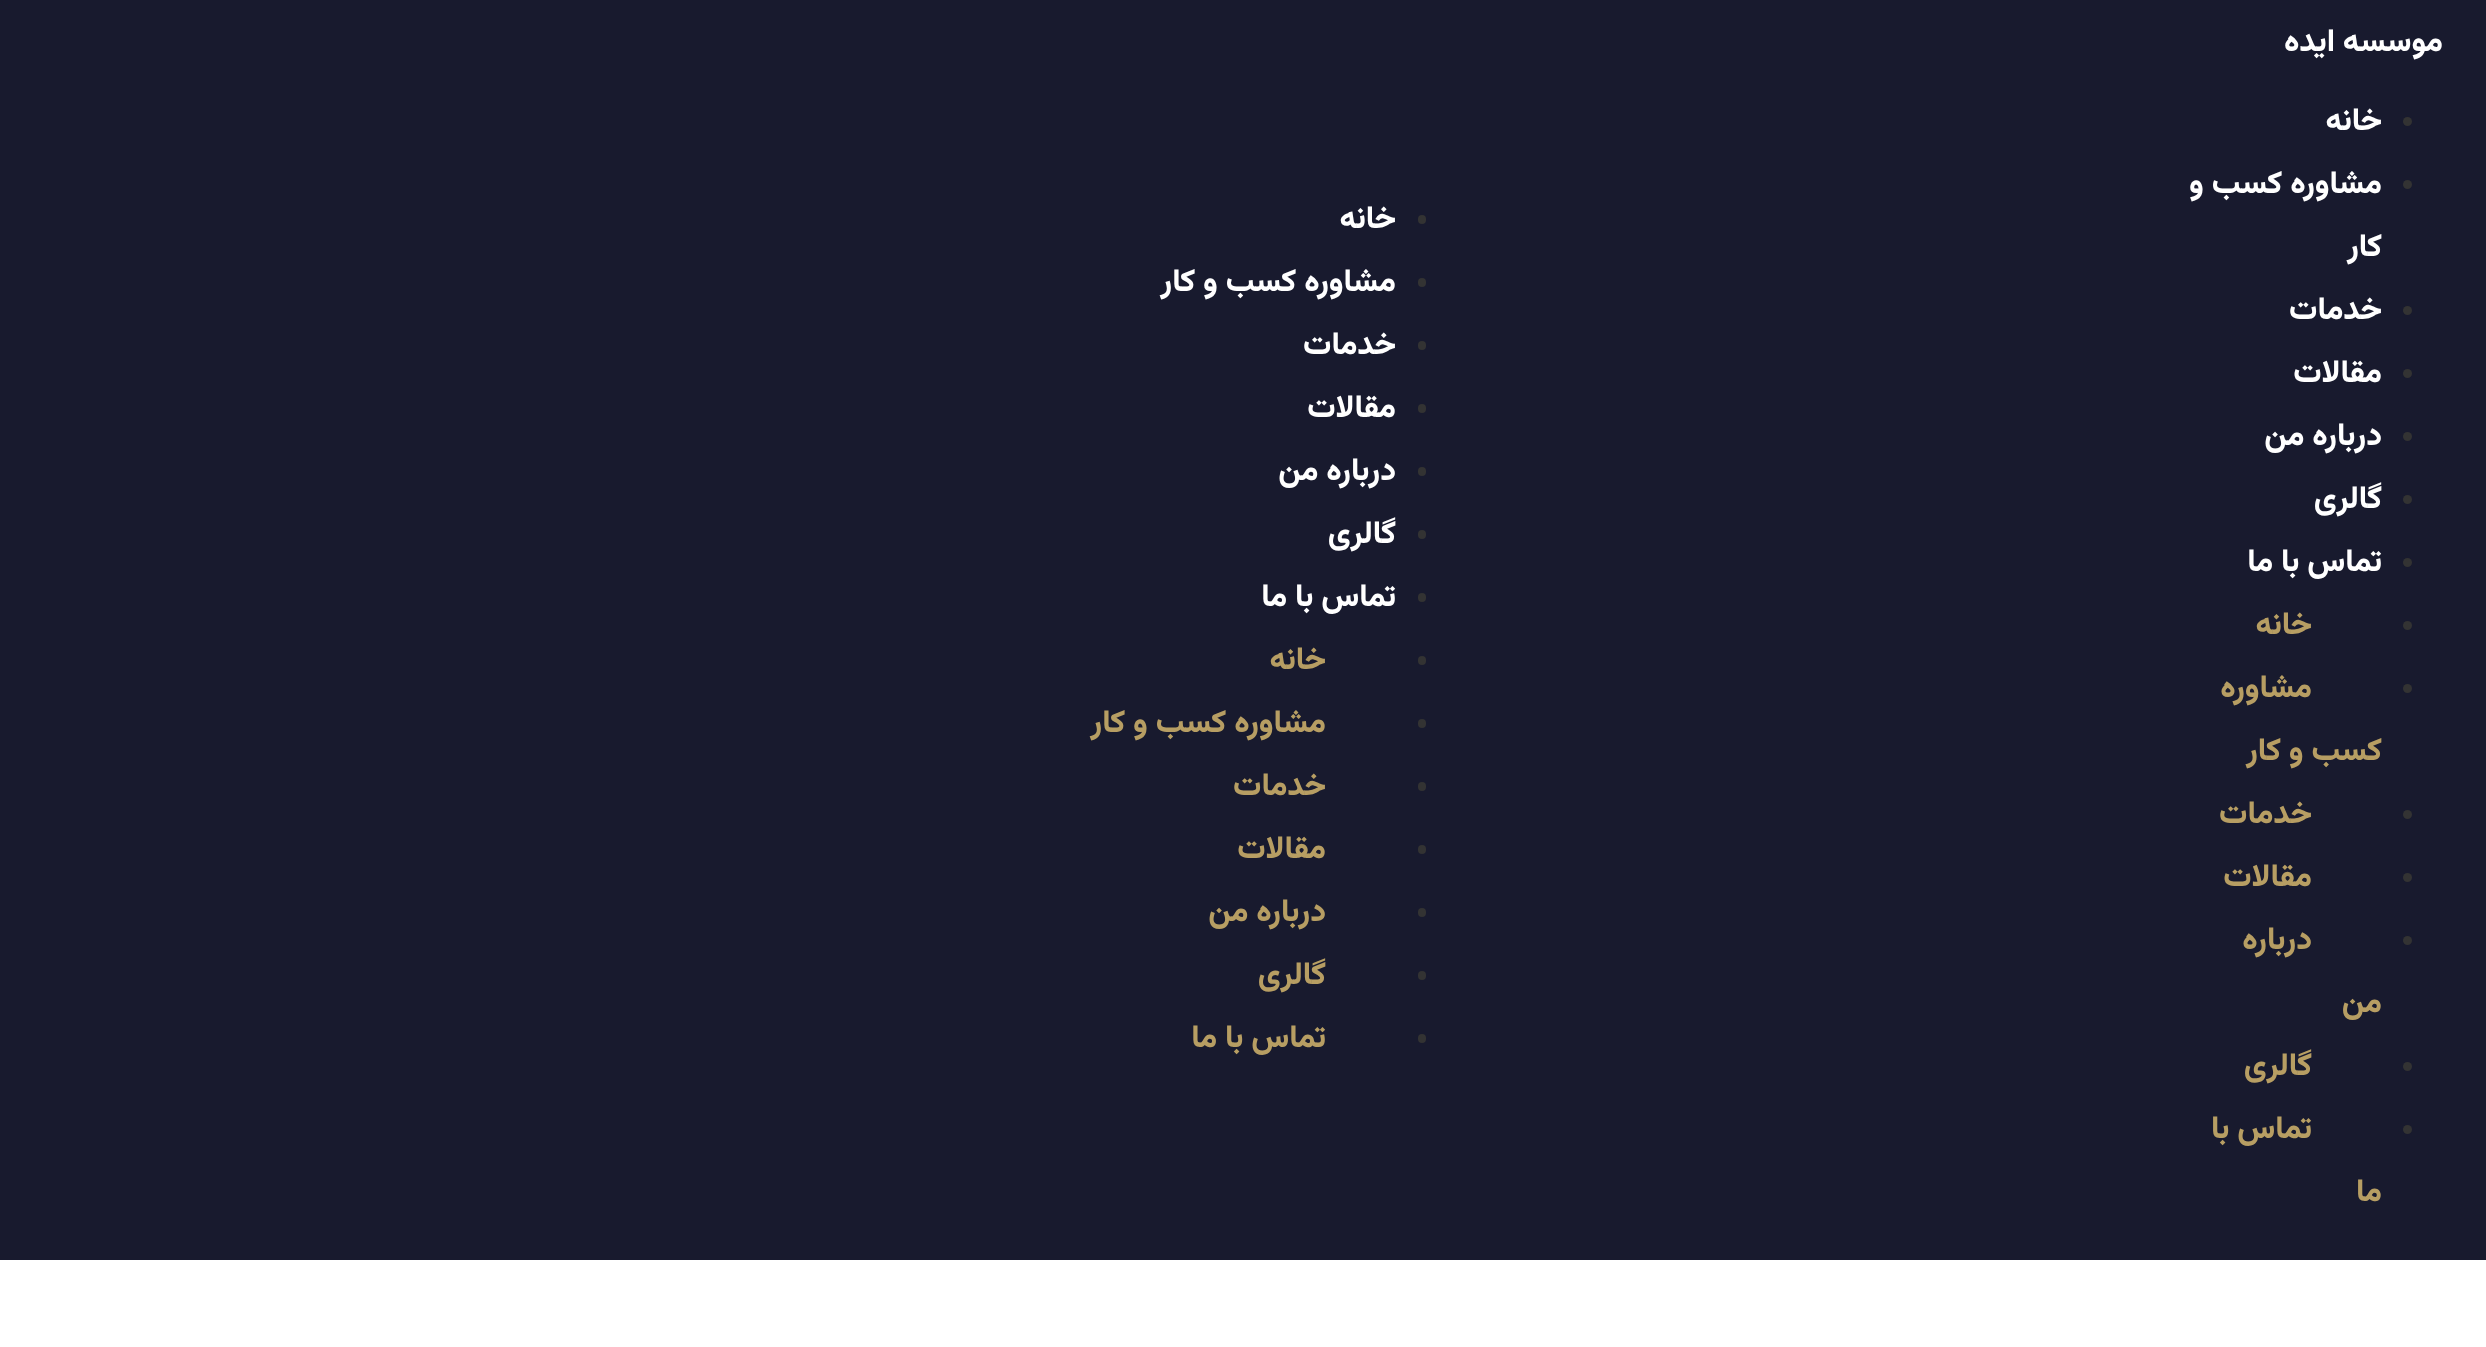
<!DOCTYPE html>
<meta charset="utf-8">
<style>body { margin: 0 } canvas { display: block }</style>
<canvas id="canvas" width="2486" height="1347"></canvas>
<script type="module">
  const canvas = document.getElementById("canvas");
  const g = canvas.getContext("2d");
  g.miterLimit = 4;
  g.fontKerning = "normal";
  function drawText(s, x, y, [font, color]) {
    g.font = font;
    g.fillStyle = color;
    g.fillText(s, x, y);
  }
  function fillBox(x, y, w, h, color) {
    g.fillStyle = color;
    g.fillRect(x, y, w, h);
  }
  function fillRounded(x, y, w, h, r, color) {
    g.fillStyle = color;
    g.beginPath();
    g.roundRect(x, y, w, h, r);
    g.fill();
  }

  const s1 = ["800 31.5px Vazirmatn", "#FFFFFF"];
  const s2 = ["800 31.5px Vazirmatn", "#B79E63"];

  fillBox(0, 0, 2486, 1347, "#FFFFFF");
  fillBox(0, 0, 2486, 1260, "#181A2E");
  g.direction = "rtl";
  drawText("موسسه ایده", 2443, 51, s1);
  g.fillStyle = "#333333";
  g.beginPath();
  g.arc(2407.5, 121.5, 4.5, 0, Math.PI * 2);
  g.fill();
  drawText("خانه", 2382, 130, s1);
  g.fillStyle = "#333333";
  g.beginPath();
  g.arc(2407.5, 184.5, 4.5, 0, Math.PI * 2);
  g.fill();
  drawText("مشاوره کسب و", 2382, 193, s1);
  drawText("کار", 2382, 256, s1);
  g.fillStyle = "#333333";
  g.beginPath();
  g.arc(2407.5, 310.5, 4.5, 0, Math.PI * 2);
  g.fill();
  drawText("خدمات", 2382, 319, s1);
  g.fillStyle = "#333333";
  g.beginPath();
  g.arc(2407.5, 373.5, 4.5, 0, Math.PI * 2);
  g.fill();
  drawText("مقالات", 2382, 382, s1);
  g.fillStyle = "#333333";
  g.beginPath();
  g.arc(2407.5, 436.5, 4.5, 0, Math.PI * 2);
  g.fill();
  drawText("درباره من", 2382, 445, s1);
  g.fillStyle = "#333333";
  g.beginPath();
  g.arc(2407.5, 499.5, 4.5, 0, Math.PI * 2);
  g.fill();
  drawText("گالری", 2382, 508, s1);
  g.fillStyle = "#333333";
  g.beginPath();
  g.arc(2407.5, 562.5, 4.5, 0, Math.PI * 2);
  g.fill();
  drawText("تماس با ما", 2382, 571, s1);
  g.fillStyle = "#333333";
  g.beginPath();
  g.arc(2407.5, 625.5, 4.5, 0, Math.PI * 2);
  g.fill();
  drawText("خانه", 2312, 634, s2);
  g.fillStyle = "#333333";
  g.beginPath();
  g.arc(2407.5, 688.5, 4.5, 0, Math.PI * 2);
  g.fill();
  drawText("مشاوره", 2312, 697, s2);
  drawText("کسب و کار", 2382, 760, s2);
  g.fillStyle = "#333333";
  g.beginPath();
  g.arc(2407.5, 814.5, 4.5, 0, Math.PI * 2);
  g.fill();
  drawText("خدمات", 2312, 823, s2);
  g.fillStyle = "#333333";
  g.beginPath();
  g.arc(2407.5, 877.5, 4.5, 0, Math.PI * 2);
  g.fill();
  drawText("مقالات", 2312, 886, s2);
  g.fillStyle = "#333333";
  g.beginPath();
  g.arc(2407.5, 940.5, 4.5, 0, Math.PI * 2);
  g.fill();
  drawText("درباره", 2312, 949, s2);
  drawText("من", 2382, 1012, s2);
  g.fillStyle = "#333333";
  g.beginPath();
  g.arc(2407.5, 1066.5, 4.5, 0, Math.PI * 2);
  g.fill();
  drawText("گالری", 2312, 1075, s2);
  g.fillStyle = "#333333";
  g.beginPath();
  g.arc(2407.5, 1129.5, 4.5, 0, Math.PI * 2);
  g.fill();
  drawText("تماس با", 2312, 1138, s2);
  drawText("ما", 2382, 1201, s2);
  fillRounded(1418, 215, 8, 9, 4, "#333333");
  drawText("خانه", 1396, 228, s1);
  fillRounded(1418, 278, 8, 9, 4, "#333333");
  drawText("مشاوره کسب و کار", 1396, 291, s1);
  fillRounded(1418, 341, 8, 9, 4, "#333333");
  drawText("خدمات", 1396, 354, s1);
  fillRounded(1418, 404, 8, 9, 4, "#333333");
  drawText("مقالات", 1396, 417, s1);
  fillRounded(1418, 467, 8, 9, 4, "#333333");
  drawText("درباره من", 1396, 480, s1);
  fillRounded(1418, 530, 8, 9, 4, "#333333");
  drawText("گالری", 1396, 543, s1);
  fillRounded(1418, 593, 8, 9, 4, "#333333");
  drawText("تماس با ما", 1396, 606, s1);
  fillRounded(1418, 656, 8, 9, 4, "#333333");
  drawText("خانه", 1326, 669, s2);
  fillRounded(1418, 719, 8, 9, 4, "#333333");
  drawText("مشاوره کسب و کار", 1326, 732, s2);
  fillRounded(1418, 782, 8, 9, 4, "#333333");
  drawText("خدمات", 1326, 795, s2);
  fillRounded(1418, 845, 8, 9, 4, "#333333");
  drawText("مقالات", 1326, 858, s2);
  fillRounded(1418, 908, 8, 9, 4, "#333333");
  drawText("درباره من", 1326, 921, s2);
  fillRounded(1418, 971, 8, 9, 4, "#333333");
  drawText("گالری", 1326, 984, s2);
  fillRounded(1418, 1034, 8, 9, 4, "#333333");
  drawText("تماس با ما", 1326, 1047, s2);
</script>
